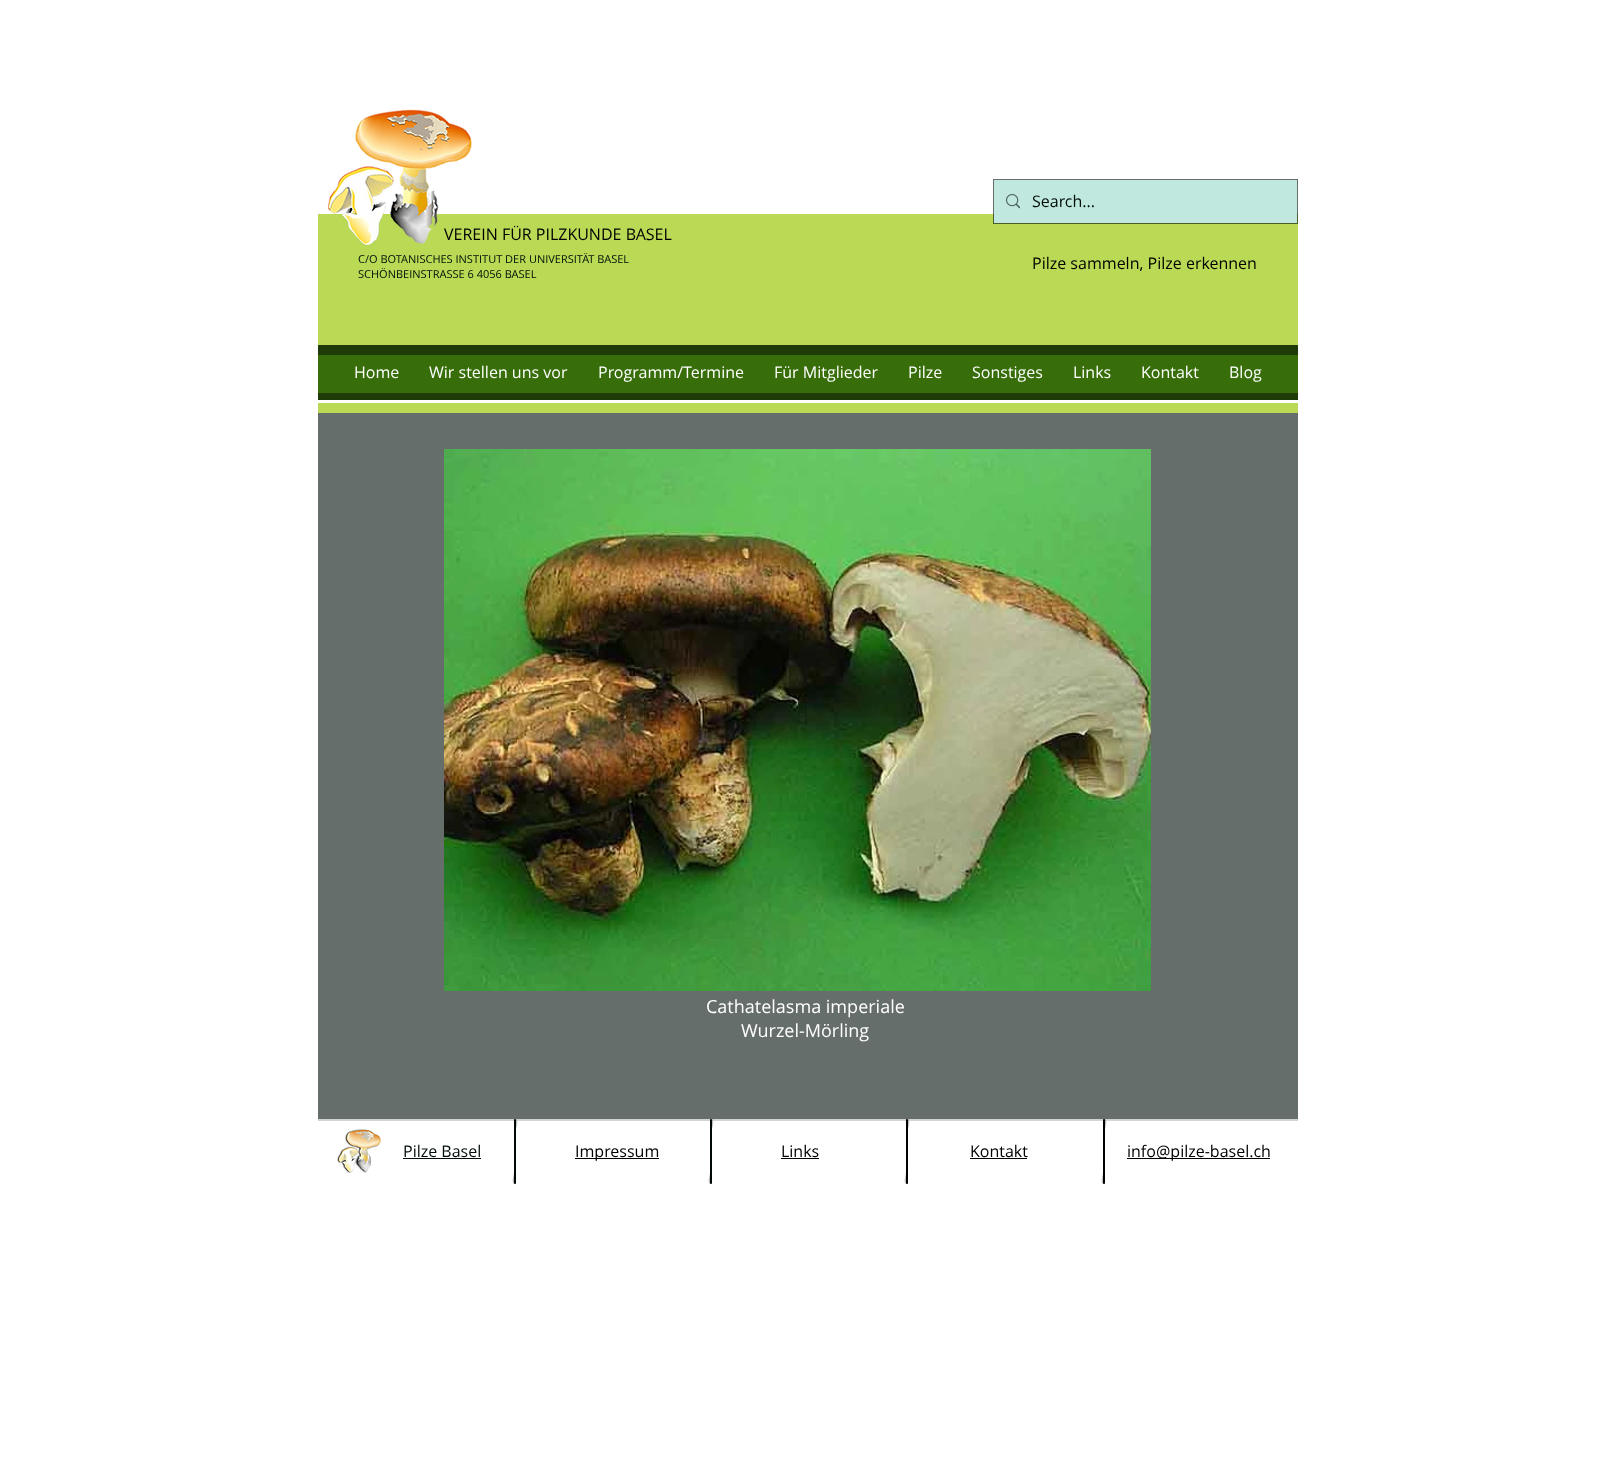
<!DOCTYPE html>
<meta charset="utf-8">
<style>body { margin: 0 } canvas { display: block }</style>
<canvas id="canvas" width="1615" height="1479"></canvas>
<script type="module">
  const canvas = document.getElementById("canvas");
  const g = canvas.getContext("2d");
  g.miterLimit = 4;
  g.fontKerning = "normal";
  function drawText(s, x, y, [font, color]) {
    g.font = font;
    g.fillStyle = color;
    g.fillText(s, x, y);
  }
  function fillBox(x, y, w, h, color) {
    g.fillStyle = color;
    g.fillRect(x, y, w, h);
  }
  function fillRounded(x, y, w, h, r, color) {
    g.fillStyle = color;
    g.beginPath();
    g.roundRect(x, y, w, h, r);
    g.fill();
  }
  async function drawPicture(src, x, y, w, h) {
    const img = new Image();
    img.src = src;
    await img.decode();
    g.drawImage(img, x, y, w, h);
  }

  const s1 = ["16px Open Sans", "#000000"];
  const s2 = ["16px Open Sans", "#000D09"];
  const s3 = ["11px Open Sans", "#000D09"];
  const s4 = ["16px Open Sans", "#FFFFFF"];
  const s5 = ["18px Open Sans", "#FFFFFF"];

  fillBox(0, 0, 1615, 1479, "#FFFFFF");
  fillBox(318, 214, 980, 131, "#BADA55");
  drawText("VEREIN FÜR PILZKUNDE BASEL", 444, 240, s1);
  await drawPicture("pic1.png", 328, 109, 144, 137);
  g.strokeStyle = "rgba(0, 13, 9, 0.6)";
  g.strokeRect(993.5, 179.5, 304, 44);
  fillBox(994, 180, 303, 43, "#C0E8DE");
  await drawPicture("pic2.png", 1006, 194, 14, 15);
  drawText("Search...", 1032, 207, s2);
  drawText("C/O BOTANISCHES INSTITUT DER UNIVERSITÄT BASEL", 358, 263, s3);
  drawText("SCHÖNBEINSTRASSE 6 4056 BASEL", 358, 278, s3);
  drawText("Pilze sammeln, Pilze erkennen", 1032, 269, s1);
  fillBox(318, 345, 980, 10, "#1F3B08");
  fillBox(318, 355, 980, 38, "#376E09");
  drawText("Home", 354, 378, s4);
  drawText("Wir stellen uns vor", 429, 378, s4);
  drawText("Programm/Termine", 598, 378, s4);
  drawText("Für Mitglieder", 774, 378, s4);
  drawText("Pilze", 908, 378, s4);
  drawText("Sonstiges", 972, 378, s4);
  drawText("Links", 1073, 378, s4);
  drawText("Kontakt", 1141, 378, s4);
  drawText("Blog", 1229, 378, s4);
  fillBox(318, 393, 980, 7, "#1F3B08");
  fillBox(318, 403, 980, 10, "#BADA55");
  fillBox(318, 413, 980, 706, "#666E6C");
  drawText("Cathatelasma imperiale", 706, 1013, s5);
  fillBox(318, 1119, 980, 2, "#D1D4D3");
  await drawPicture("pic3.png", 444, 449, 707, 542);
  drawText("Wurzel-Mörling", 741, 1037, s5);
  await drawPicture("pic4.png", 337, 1129, 44, 44);
  drawText("Pilze Basel", 403, 1157, s2);
  fillBox(403, 1158, 78, 1, "#000D09");
  g.fillStyle = "rgba(255, 255, 255, 0.1)";
  g.beginPath();
  g.moveTo(516, 1120);
  g.lineTo(516, 1183);
  g.lineTo(515, 1184);
  g.bezierCurveTo(515, 1185, 517, 1185, 517, 1184);
  g.lineTo(517, 1120);
  g.closePath();
  g.fill();
  fillRounded(514, 1119, 2, 65, 1, "#000D09");
  g.fillStyle = "rgba(0, 0, 0, 0.25)";
  g.beginPath();
  g.moveTo(515, 1119);
  g.lineTo(514, 1120);
  g.lineTo(514, 1172);
  g.bezierCurveTo(514, 1176, 511, 1182, 514, 1184);
  g.lineTo(515, 1184);
  g.lineTo(516, 1183);
  g.lineTo(516, 1130);
  g.bezierCurveTo(516, 1127, 519, 1121, 516, 1119);
  g.closePath();
  g.fill();
  fillBox(575, 1158, 84, 1, "#000000");
  drawText("Impressum", 575, 1157, s1);
  g.fillStyle = "rgba(255, 255, 255, 0.1)";
  g.beginPath();
  g.moveTo(712, 1120);
  g.lineTo(712, 1183);
  g.lineTo(711, 1184);
  g.bezierCurveTo(711, 1185, 713, 1185, 713, 1184);
  g.lineTo(713, 1120);
  g.closePath();
  g.fill();
  fillRounded(710, 1119, 2, 65, 1, "#000D09");
  g.fillStyle = "rgba(0, 0, 0, 0.25)";
  g.beginPath();
  g.moveTo(711, 1119);
  g.lineTo(710, 1120);
  g.lineTo(710, 1172);
  g.bezierCurveTo(710, 1176, 707, 1182, 710, 1184);
  g.lineTo(711, 1184);
  g.lineTo(712, 1183);
  g.lineTo(712, 1130);
  g.bezierCurveTo(712, 1127, 715, 1121, 712, 1119);
  g.closePath();
  g.fill();
  drawText("Links", 781, 1157, s1);
  fillBox(781, 1158, 38, 1, "#000000");
  g.fillStyle = "rgba(255, 255, 255, 0.1)";
  g.beginPath();
  g.moveTo(908, 1120);
  g.lineTo(908, 1183);
  g.lineTo(907, 1184);
  g.bezierCurveTo(907, 1185, 909, 1185, 909, 1184);
  g.lineTo(909, 1120);
  g.closePath();
  g.fill();
  fillRounded(906, 1119, 2, 65, 1, "#000000");
  g.fillStyle = "rgba(0, 0, 0, 0.25)";
  g.beginPath();
  g.moveTo(907, 1119);
  g.lineTo(906, 1120);
  g.lineTo(906, 1172);
  g.bezierCurveTo(906, 1176, 903, 1182, 906, 1184);
  g.lineTo(907, 1184);
  g.lineTo(908, 1183);
  g.lineTo(908, 1130);
  g.bezierCurveTo(908, 1127, 911, 1121, 908, 1119);
  g.closePath();
  g.fill();
  drawText("Kontakt", 970, 1157, s1);
  fillBox(970, 1158, 57, 1, "#000000");
  g.fillStyle = "rgba(255, 255, 255, 0.1)";
  g.beginPath();
  g.moveTo(1105, 1120);
  g.lineTo(1105, 1183);
  g.lineTo(1104, 1184);
  g.bezierCurveTo(1104, 1185, 1106, 1185, 1106, 1184);
  g.lineTo(1106, 1120);
  g.closePath();
  g.fill();
  fillRounded(1103, 1119, 2, 65, 1, "#000000");
  g.fillStyle = "rgba(0, 0, 0, 0.25)";
  g.beginPath();
  g.moveTo(1104, 1119);
  g.lineTo(1103, 1120);
  g.lineTo(1103, 1172);
  g.bezierCurveTo(1103, 1176, 1100, 1182, 1103, 1184);
  g.lineTo(1104, 1184);
  g.lineTo(1105, 1183);
  g.lineTo(1105, 1130);
  g.bezierCurveTo(1105, 1127, 1108, 1121, 1105, 1119);
  g.closePath();
  g.fill();
  fillBox(1127, 1158, 143, 1, "#000000");
  drawText("info@pilze-basel.ch", 1127, 1157, s1);
</script>
